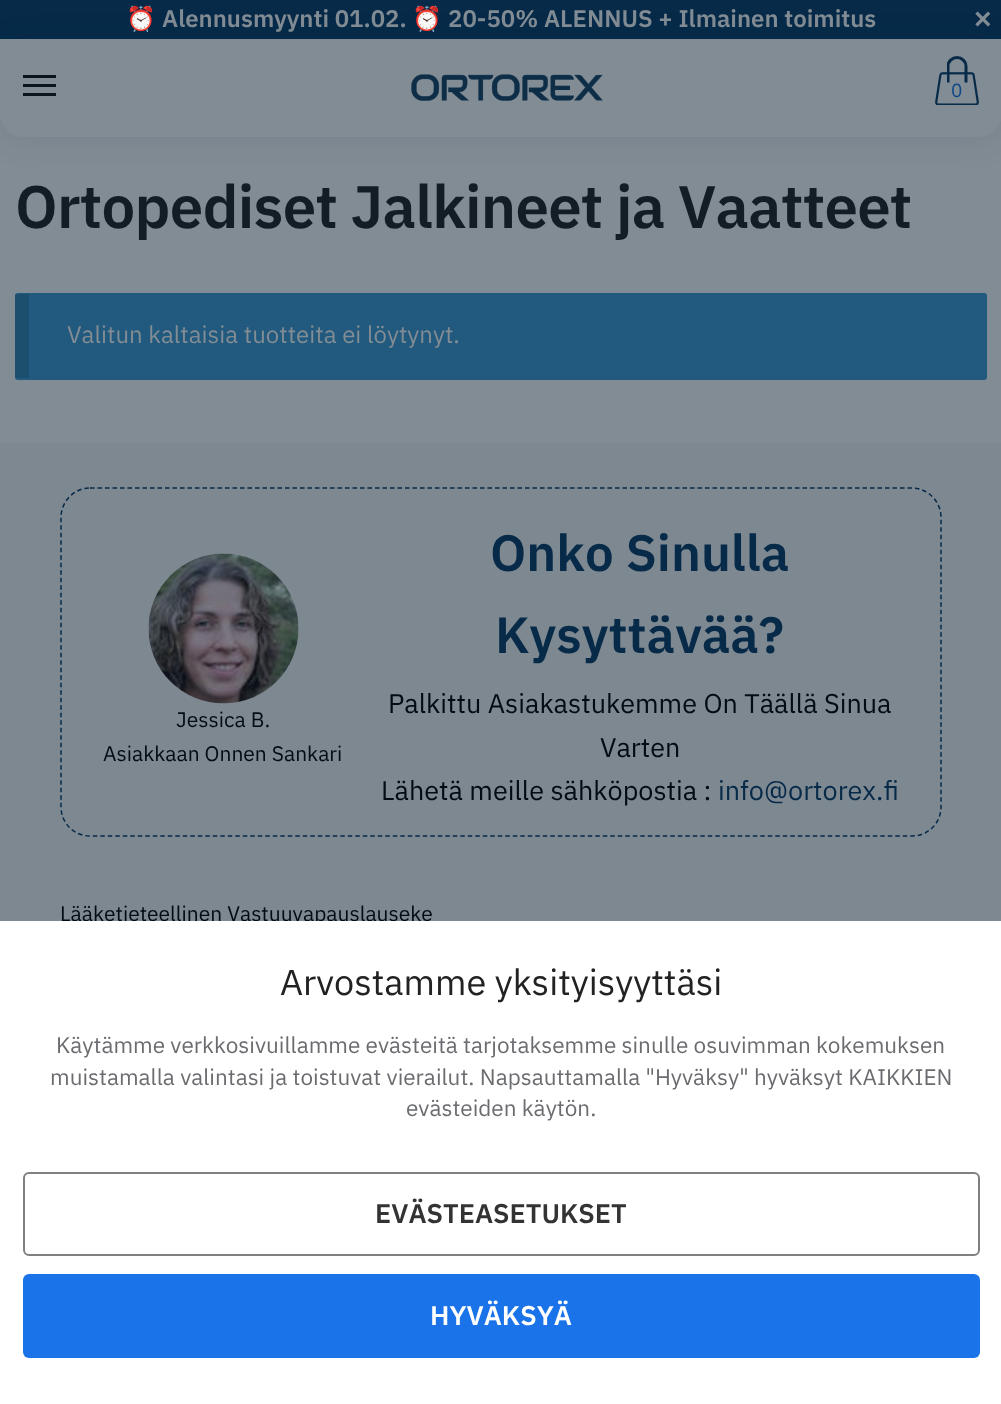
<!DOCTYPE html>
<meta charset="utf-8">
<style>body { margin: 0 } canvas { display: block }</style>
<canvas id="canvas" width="1001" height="1404"></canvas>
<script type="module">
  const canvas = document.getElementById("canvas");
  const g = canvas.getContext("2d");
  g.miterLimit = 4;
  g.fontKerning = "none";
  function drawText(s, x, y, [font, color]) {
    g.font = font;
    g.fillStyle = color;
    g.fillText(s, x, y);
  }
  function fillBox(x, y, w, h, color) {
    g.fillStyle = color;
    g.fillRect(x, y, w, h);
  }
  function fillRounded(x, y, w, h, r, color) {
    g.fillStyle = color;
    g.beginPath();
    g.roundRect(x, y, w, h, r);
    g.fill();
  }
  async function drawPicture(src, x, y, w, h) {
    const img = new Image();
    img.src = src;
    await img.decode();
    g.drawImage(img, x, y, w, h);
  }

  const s1 = ["bold 24px Noto Color Emoji", "#828C94"];
  const s2 = ["600 24px IBM Plex Sans", "#828C94"];
  const s3 = ["bold 30px Liberation Sans", "#828C94"];
  const s4 = ["19px IBM Plex Sans", "#0F4689"];
  const s5 = ["600 60px IBM Plex Sans", "#131D26"];
  const s6 = ["24px IBM Plex Sans", "#828C94"];
  const s7 = ["21px IBM Plex Sans", "#020C15"];
  const s8 = ["600 51px IBM Plex Sans", "#062A48"];
  const s9 = ["27px IBM Plex Sans", "#020C15"];
  const s10 = ["27px IBM Plex Sans", "#062A48"];
  const s11 = ["36px IBM Plex Sans", "#222222"];
  const s12 = ["22.5px IBM Plex Sans", "#6B6C70"];
  const s13 = ["600 27px IBM Plex Sans", "#333333"];
  const s14 = ["600 27px IBM Plex Sans", "#FFFFFF"];

  fillBox(0, 0, 1001, 1404, "#828C94");
  fillBox(0, 0, 1001, 39, "#062A48");
  drawText("⏰", 126, 27, s1);
  drawText("Alennusmyynti 01.02.", 162, 27, s2);
  drawText("⏰", 412, 27, s1);
  drawText("20-50% ALENNUS + Ilmainen toimitus", 448, 27, s2);
  g.fillStyle = "rgba(24, 42, 67, 0.1)";
  g.filter = "blur(15px)";
  g.beginPath();
  g.roundRect(0, 42, 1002, 98, 23);
  g.fill();
  g.filter = "none";
  drawText("×", 974, 29, s3);
  g.beginPath();
  g.moveTo(0, 39);
  g.lineTo(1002, 39);
  g.lineTo(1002, 114);
  g.bezierCurveTo(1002, 126.5, 991.5, 137, 979, 137);
  g.lineTo(23, 137);
  g.bezierCurveTo(10.5, 137, 0, 126.5, 0, 114);
  g.closePath();
  g.fill();
  fillBox(23, 75, 33, 3, "#0B151D");
  fillBox(23, 84, 33, 3, "#0B151D");
  fillBox(23, 93, 33, 3, "#0B151D");
  await drawPicture("pic1.png", 411, 74, 192, 27);
  await drawPicture("pic2.png", 935, 72, 44, 33);
  g.save();
  g.beginPath();
  g.rect(947, 56, 21, 27);
  g.clip();
  g.beginPath();
  g.moveTo(948, 82.5);
  g.lineTo(948, 66);
  g.bezierCurveTo(948, 61.5, 952, 57.5, 957, 57.5);
  g.bezierCurveTo(962, 57.5, 966, 61.5, 966, 66);
  g.lineTo(966, 82.5);
  g.strokeStyle = "#062A48";
  g.lineWidth = 3;
  g.stroke();
  g.restore();
  drawText("0", 951, 97, s4);
  g.letterSpacing = "-0.75px";
  drawText("Ortopediset Jalkineet ja Vaatteet", 15, 228, s5);
  fillRounded(15, 293, 972, 87, 3, "#215A7E");
  fillBox(15, 294, 14, 84, "rgba(2, 12, 21, 0.15)");
  g.letterSpacing = "0px";
  drawText("Valitun kaltaisia tuotteita ei löytynyt.", 67, 343, s6);
  fillBox(0, 443, 1001, 478, "#7E8891");
  g.beginPath();
  g.moveTo(90, 488);
  g.lineTo(912, 488);
  g.bezierCurveTo(928, 488, 941, 501.5, 941, 517.5);
  g.lineTo(941, 807);
  g.bezierCurveTo(941, 823, 928, 836, 912, 836);
  g.lineTo(90, 836);
  g.bezierCurveTo(74, 836, 61, 823, 61, 807);
  g.lineTo(61, 517.5);
  g.bezierCurveTo(61, 501.5, 74, 488, 90, 488);
  g.closePath();
  g.strokeStyle = "#062A48";
  g.lineWidth = 1.5;
  g.setLineDash([4.5, 3]);
  g.stroke();
  await drawPicture("pic3.png", 148, 553, 151, 151);
  drawText("Jessica B.", 176, 727, s7);
  drawText("Asiakkaan Onnen Sankari", 103, 761, s7);
  drawText("Onko Sinulla", 490, 571, s8);
  drawText("Kysyttävää?", 495, 653, s8);
  drawText("Palkittu Asiakastukemme On Täällä Sinua", 388, 713, s9);
  drawText("Varten", 600, 757, s9);
  drawText("Lähetä meille sähköpostia :", 381, 800, s9);
  drawText("info@ortorex.fi", 718, 800, s10);
  drawText("Lääketieteellinen Vastuuvapauslauseke", 60, 921, s7);
  fillBox(0, 921, 1001, 483, "#FFFFFF");
  drawText("Arvostamme yksityisyyttäsi", 280, 995, s11);
  drawText("Käytämme verkkosivuillamme evästeitä tarjotaksemme sinulle osuvimman kokemuksen", 56, 1053, s12);
  drawText("muistamalla valintasi ja toistuvat vierailut. Napsauttamalla \"Hyväksy\" hyväksyt KAIKKIEN", 50, 1085, s12);
  drawText("evästeiden käytön.", 406, 1116, s12);
  g.beginPath();
  g.roundRect(24, 1173, 955, 82, 5);
  g.strokeStyle = "#808080";
  g.lineWidth = 2;
  g.setLineDash([]);
  g.stroke();
  drawText("EVÄSTEASETUKSET", 375, 1223, s13);
  fillRounded(23, 1274, 957, 84, 6, "#1A73E8");
  drawText("HYVÄKSYÄ", 430, 1325, s14);
</script>
